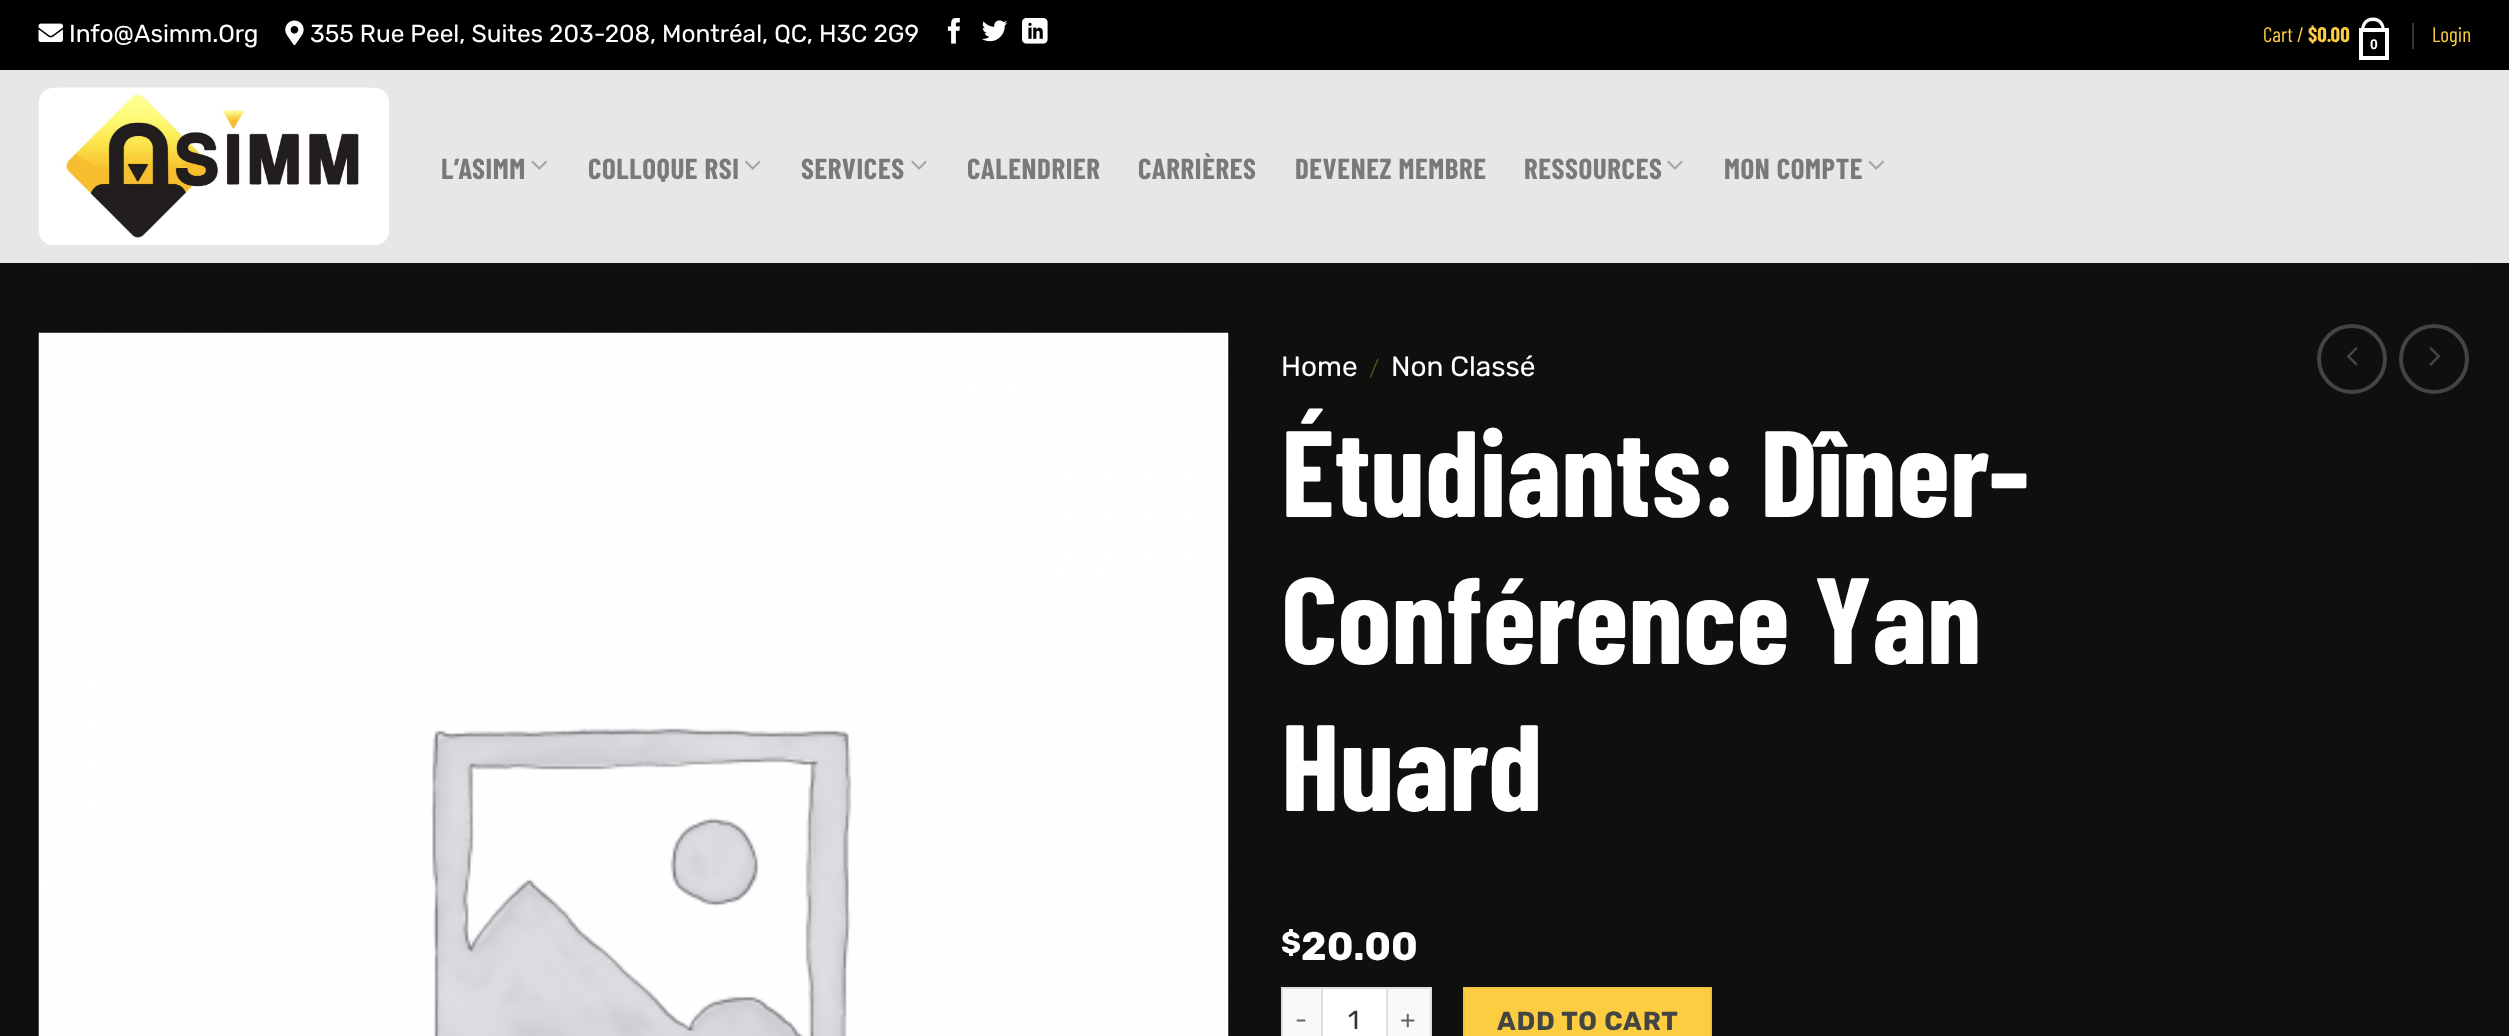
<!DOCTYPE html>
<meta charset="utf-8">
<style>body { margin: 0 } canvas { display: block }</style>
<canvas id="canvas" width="2509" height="1036"></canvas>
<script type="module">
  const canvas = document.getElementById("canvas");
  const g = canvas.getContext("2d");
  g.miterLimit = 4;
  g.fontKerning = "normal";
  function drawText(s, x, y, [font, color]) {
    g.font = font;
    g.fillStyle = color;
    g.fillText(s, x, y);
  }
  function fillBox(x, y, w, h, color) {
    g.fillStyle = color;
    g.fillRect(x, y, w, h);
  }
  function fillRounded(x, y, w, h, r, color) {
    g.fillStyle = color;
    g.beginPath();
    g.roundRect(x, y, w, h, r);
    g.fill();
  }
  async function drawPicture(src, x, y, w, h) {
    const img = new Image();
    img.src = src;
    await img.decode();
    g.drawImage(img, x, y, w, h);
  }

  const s1 = ["24.5px Rubik", "#FFFFFF"];
  const s2 = ["21px Barlow Condensed", "#FCCC41"];
  const s3 = ["bold 21px Barlow Condensed", "#FCCC41"];
  const s4 = ["bold 14px Liberation Sans", "#FFFFFF"];
  const s5 = ["bold 29px Barlow Condensed", "#797979"];
  const s6 = ["28px Rubik", "#FFFFFF"];
  const s7 = ["300 22px Rubik", "#625120"];
  const s8 = ["bold 122.5px Barlow Condensed", "#FFFFFF"];
  const s9 = ["bold 30px Rubik", "#FFFFFF"];
  const s10 = ["bold 39.5px Rubik", "#FFFFFF"];
  const s11 = ["25px Rubik", "#666666"];
  const s12 = ["26.25px Rubik", "#333333"];
  const s13 = ["bold 26.25px Rubik", "#444443"];

  fillBox(0, 0, 2509, 1036, "#0F0F0E");
  fillBox(0, 0, 2509, 70, "#000000");
  await drawPicture("pic1.png", 38, 23, 25, 19);
  drawText("Info@Asimm.Org", 69, 42, s1);
  await drawPicture("pic2.png", 285, 20, 19, 25);
  drawText("355 Rue Peel, Suites 203-208, Montréal, QC, H3C 2G9", 310, 42, s1);
  await drawPicture("pic3.png", 947, 18, 13, 26);
  await drawPicture("pic4.png", 982, 20, 26, 22);
  await drawPicture("pic5.png", 1022, 18, 26, 26);
  drawText("Cart /", 2263, 42, s2);
  drawText("$0.00", 2308, 42, s3);
  g.strokeStyle = "#FFFFFF";
  g.lineWidth = 4;
  g.strokeRect(2361, 30, 26, 28);
  g.fillStyle = "#FFFFFF";
  g.beginPath();
  g.moveTo(2373, 17.5);
  g.bezierCurveTo(2381.5, 17.5, 2385, 24, 2385, 31.5);
  g.lineTo(2361, 31.5);
  g.bezierCurveTo(2361, 24, 2364.5, 17.5, 2373, 17.5);
  g.closePath();
  g.moveTo(2373, 21);
  g.bezierCurveTo(2379.5, 21, 2382, 26, 2382, 31.5);
  g.lineTo(2364, 31.5);
  g.bezierCurveTo(2364, 26, 2366.5, 21, 2373, 21);
  g.closePath();
  g.fill("evenodd");
  drawText("0", 2370, 49, s4);
  fillBox(2412, 23, 2, 26, "#333333");
  drawText("Login", 2432, 42, s2);
  fillBox(0, 70, 2509, 193, "#E7E7E7");
  fillRounded(39, 88, 350, 157, 14, "#FFFFFF");
  await drawPicture("pic6.png", 58, 87, 311, 151);
  g.letterSpacing = "0.6px";
  drawText("L’ASIMM", 441, 179, s5);
  await drawPicture("pic7.png", 531, 160, 16, 10);
  drawText("COLLOQUE RSI", 588, 179, s5);
  await drawPicture("pic8.png", 745, 160, 16, 10);
  drawText("SERVICES", 801, 179, s5);
  await drawPicture("pic9.png", 911, 160, 16, 10);
  drawText("CALENDRIER", 967, 179, s5);
  drawText("CARRIÈRES", 1138, 179, s5);
  drawText("DEVENEZ MEMBRE", 1295, 179, s5);
  drawText("RESSOURCES", 1524, 179, s5);
  await drawPicture("pic9.png", 1667, 160, 16, 10);
  drawText("MON COMPTE", 1724, 179, s5);
  await drawPicture("pic7.png", 1868, 160, 16, 10);
  fillBox(39, 263, 2432, 2, "#141413");
  await drawPicture("pic10.png", 38, 332, 1191, 704);
  g.letterSpacing = "0px";
  drawText("Home", 1281, 376, s6);
  drawText("/", 1369, 376, s7);
  drawText("Non Classé", 1391, 376, s6);
  drawText("Étudiants: Dîner-", 1281, 517, s8);
  drawText("Conférence Yan", 1281, 664, s8);
  drawText("Huard", 1281, 811, s8);
  drawText("$", 1281, 953, s9);
  drawText("20.00", 1301, 960, s10);
  fillBox(1283, 989, 38, 47, "#F9F9F9");
  fillBox(1281, 987, 40, 2, "#DDDDDD");
  fillBox(1281, 987, 2, 49, "#DDDDDD");
  g.letterSpacing = "1px";
  drawText("-", 1295, 1028, s11);
  g.fillStyle = "#FFFFFF";
  g.beginPath();
  g.rect(1322, 988, 65, 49);
  g.fill();
  g.strokeStyle = "#DDDDDD";
  g.lineWidth = 2;
  g.stroke();
  g.letterSpacing = "0px";
  drawText("1", 1348, 1029, s12);
  fillBox(1388, 989, 42, 47, "#F9F9F9");
  fillBox(1388, 987, 44, 2, "#DDDDDD");
  fillBox(1430, 987, 2, 49, "#DDDDDD");
  g.letterSpacing = "1px";
  drawText("+", 1400, 1028, s11);
  g.fillStyle = "#FCCC41";
  g.beginPath();
  g.rect(1464, 988, 247, 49);
  g.fill();
  g.strokeStyle = "#EFC23E";
  g.stroke();
  g.letterSpacing = "0.75px";
  drawText("ADD TO CART", 1497, 1030, s13);
  g.beginPath();
  g.arc(2352, 359, 33, 0, Math.PI * 2);
  g.strokeStyle = "#444444";
  g.lineWidth = 4;
  g.stroke();
  await drawPicture("pic11.png", 2346, 347, 12, 19);
  g.beginPath();
  g.arc(2434, 359, 33, 0, Math.PI * 2);
  g.stroke();
  await drawPicture("pic12.png", 2429, 347, 12, 19);
</script>
